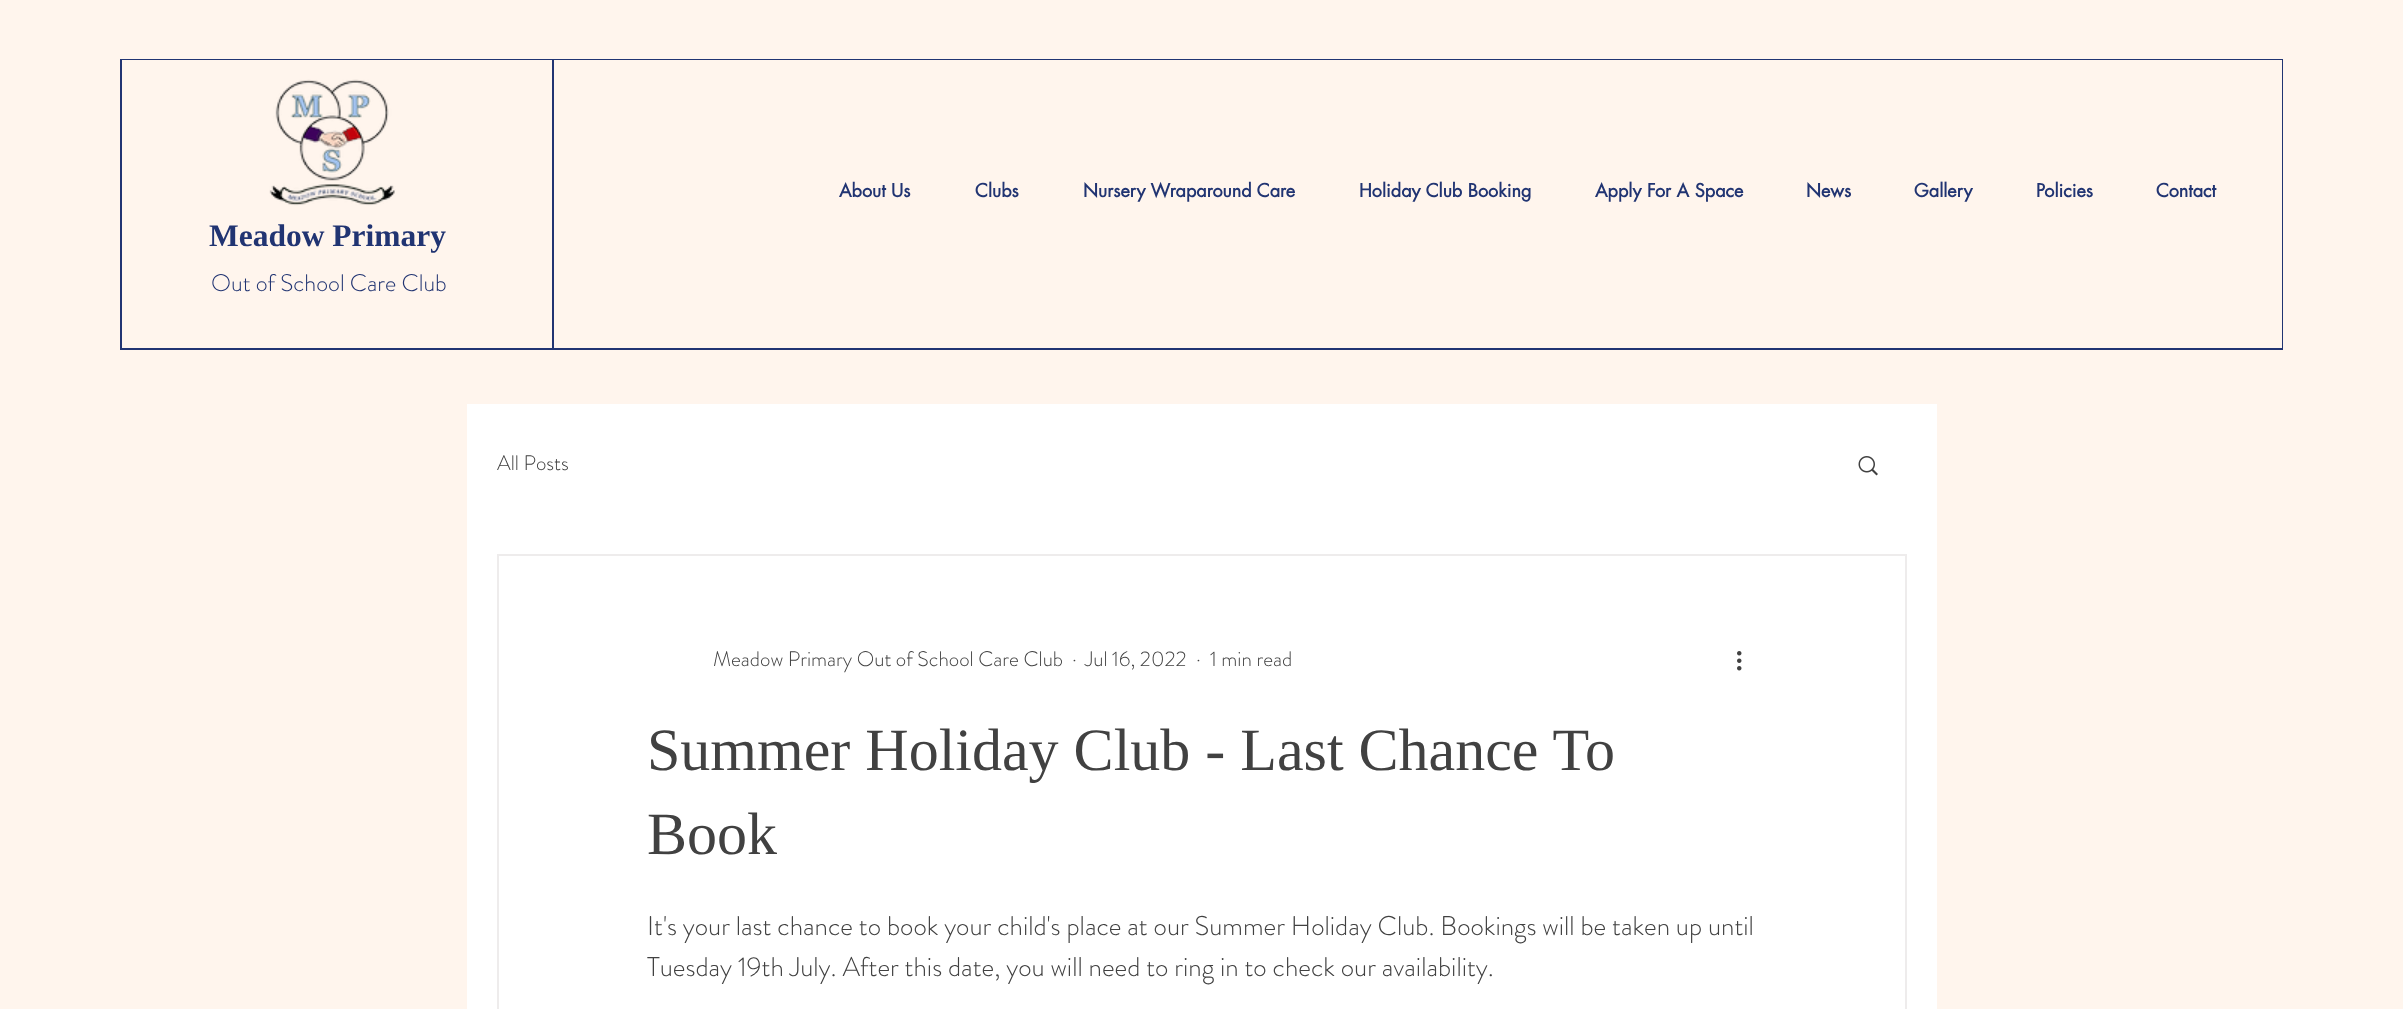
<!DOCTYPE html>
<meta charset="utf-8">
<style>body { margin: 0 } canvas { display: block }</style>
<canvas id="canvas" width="2403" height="1009"></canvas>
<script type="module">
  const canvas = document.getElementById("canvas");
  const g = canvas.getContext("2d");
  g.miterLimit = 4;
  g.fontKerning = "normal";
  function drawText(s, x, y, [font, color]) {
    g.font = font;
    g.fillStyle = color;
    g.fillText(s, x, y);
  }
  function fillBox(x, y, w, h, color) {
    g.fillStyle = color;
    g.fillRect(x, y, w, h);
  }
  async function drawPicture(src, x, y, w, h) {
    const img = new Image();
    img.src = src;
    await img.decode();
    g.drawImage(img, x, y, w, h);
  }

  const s1 = ["bold 18px futura", "#213472"];
  const s2 = ["bold 31.5px Liberation Serif", "#213472"];
  const s3 = ["300 24px 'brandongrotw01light'", "#213472"];
  const s4 = ["300 21px 'brandongrotw01light'", "#414141"];
  const s5 = ["60px Liberation Serif", "#414141"];
  const s6 = ["300 27px 'brandongrotw01light'", "#414141"];

  fillBox(0, 0, 2403, 1009, "#FFF5ED");
  fillBox(120, 59, 2163, 291, "#213472");
  fillBox(554, 60, 1728, 288, "#FFF5ED");
  drawText("About Us", 839, 197, s1);
  drawText("Clubs", 975, 197, s1);
  drawText("Nursery Wraparound Care", 1083, 197, s1);
  drawText("Holiday Club Booking", 1359, 197, s1);
  drawText("Apply For A Space", 1595, 197, s1);
  drawText("News", 1806, 197, s1);
  drawText("Gallery", 1914, 197, s1);
  drawText("Policies", 2036, 197, s1);
  drawText("Contact", 2156, 197, s1);
  fillBox(122, 60, 430, 288, "#FFF5ED");
  await drawPicture("pic1.png", 269, 79, 127, 127);
  drawText("Meadow Primary", 209, 246, s2);
  drawText("Out of School Care Club", 211, 291, s3);
  fillBox(467, 404, 1470, 605, "#FFFFFF");
  drawText("All Posts", 497, 470, s4);
  await drawPicture("pic2.png", 1858, 456, 20, 20);
  g.strokeStyle = "#EEECEC";
  g.lineWidth = 2;
  g.strokeRect(498, 555, 1408, 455);
  drawText("Meadow Primary Out of School Care Club", 713, 666, s4);
  drawText("·", 1072, 666, s4);
  drawText("Jul 16, 2022", 1085, 666, s4);
  drawText("·", 1196, 666, s4);
  drawText("1 min read", 1210, 666, s4);
  await drawPicture("pic3.png", 1737, 651, 5, 20);
  drawText("Summer Holiday Club - Last Chance To", 647, 770, s5);
  drawText("Book", 647, 854, s5);
  drawText("It's your last chance to book your child's place at our Summer Holiday Club. Bookings will be taken up until", 647, 935, s6);
  drawText("Tuesday 19th July. After this date, you will need to ring in to check our availability.", 647, 976, s6);
</script>
